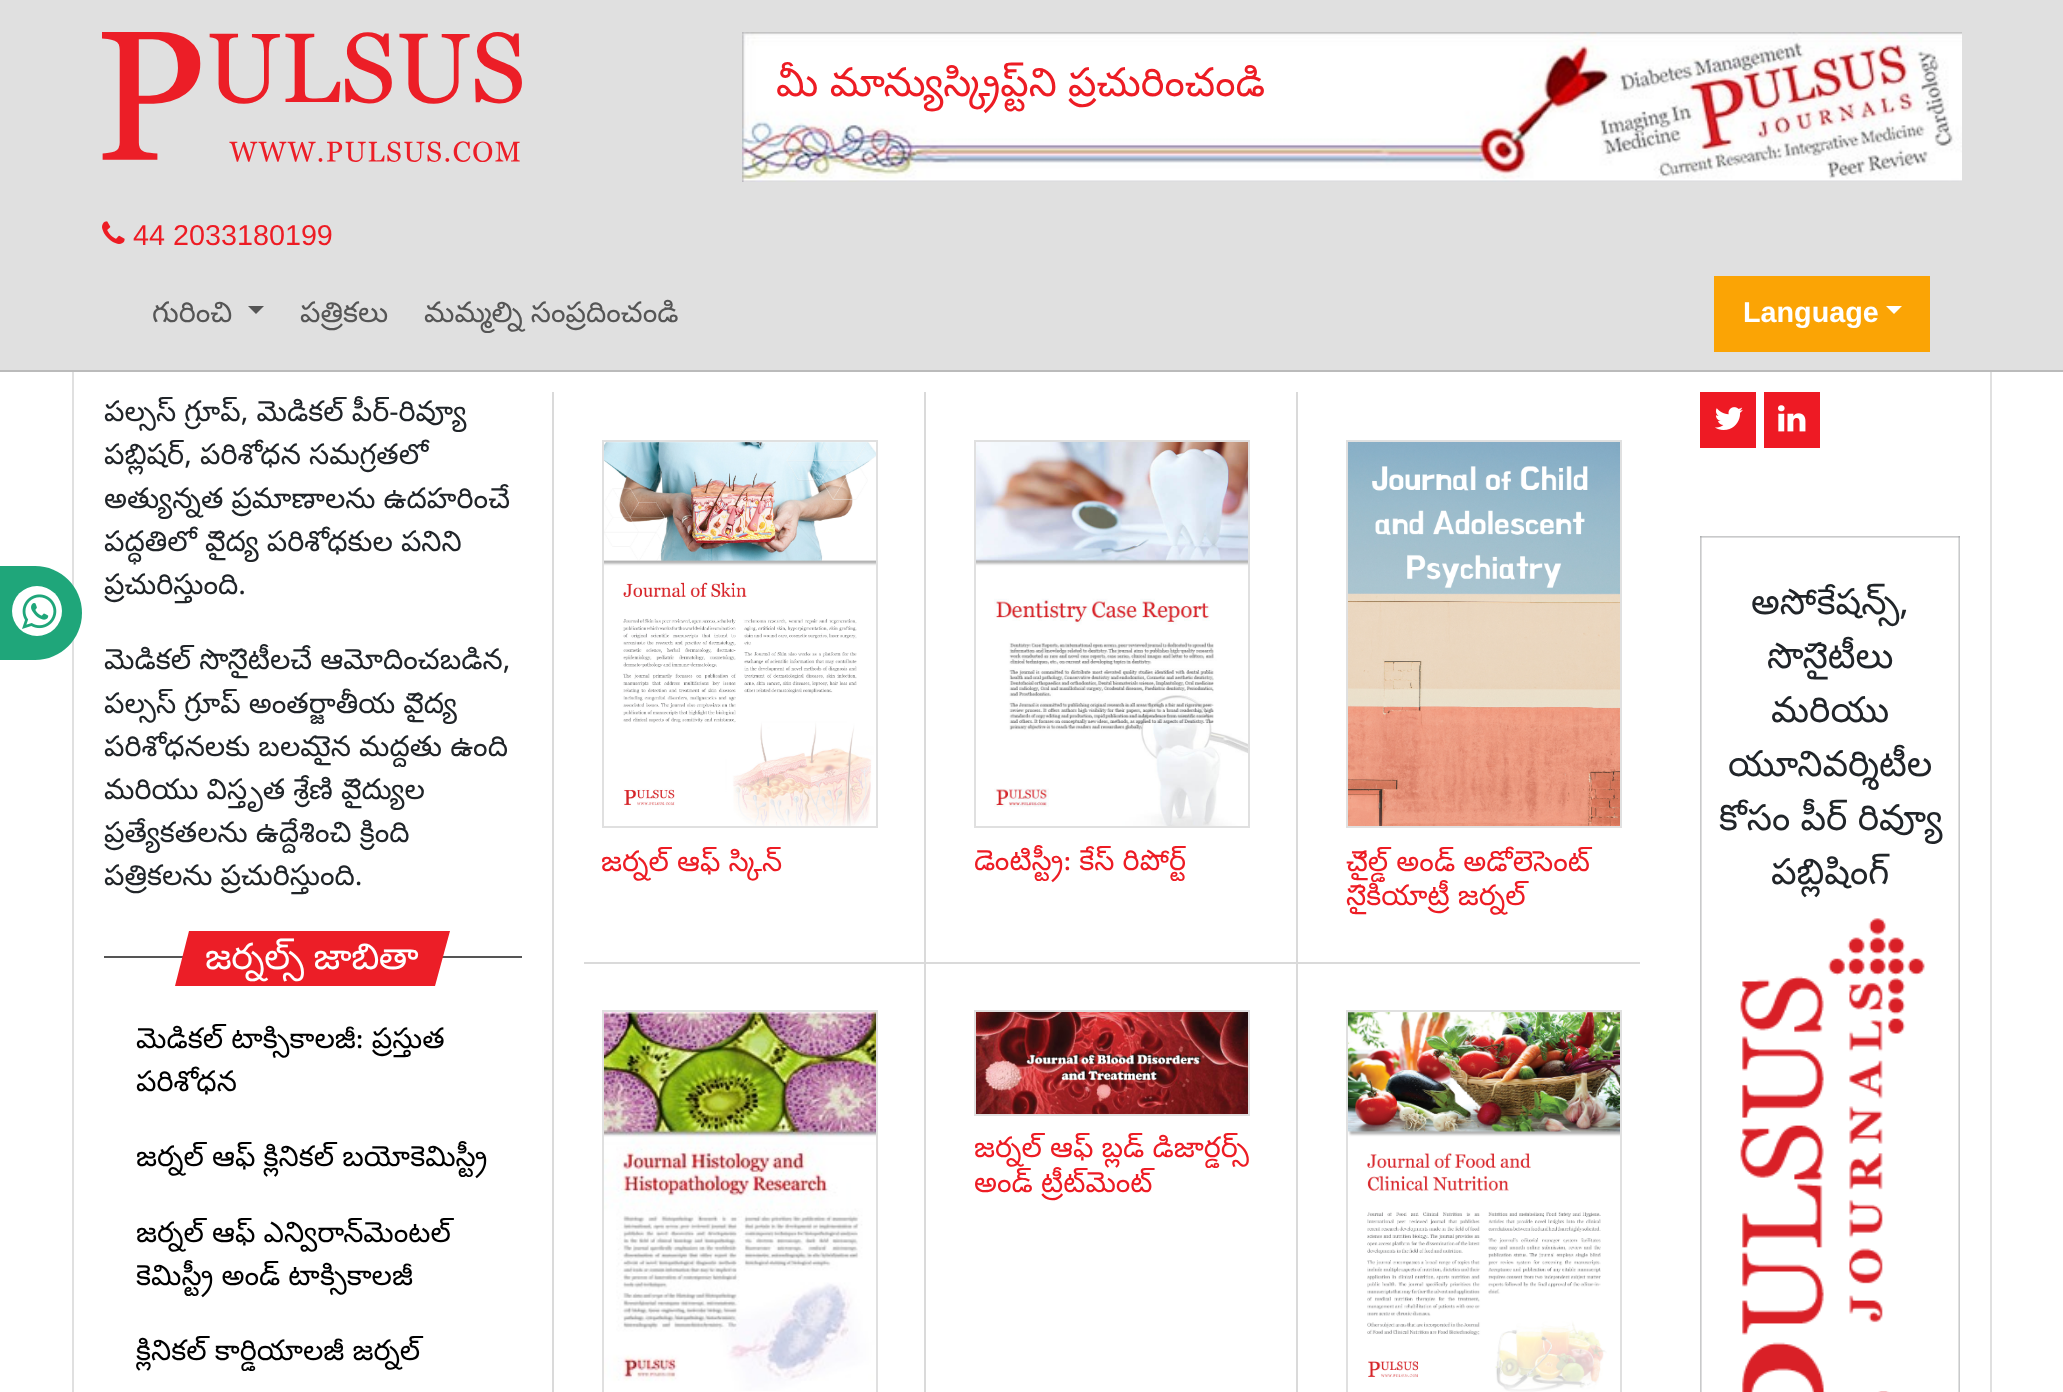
<!DOCTYPE html>
<meta charset="utf-8">
<style>body { margin: 0 } canvas { display: block }</style>
<canvas id="canvas" width="2063" height="1392"></canvas>
<script type="module">
  const canvas = document.getElementById("canvas");
  const g = canvas.getContext("2d");
  g.miterLimit = 4;
  g.fontKerning = "normal";
  function drawText(s, x, y, [font, color]) {
    g.font = font;
    g.fillStyle = color;
    g.fillText(s, x, y);
  }
  function fillBox(x, y, w, h, color) {
    g.fillStyle = color;
    g.fillRect(x, y, w, h);
  }
  async function drawPicture(src, x, y, w, h) {
    const img = new Image();
    img.src = src;
    await img.decode();
    g.drawImage(img, x, y, w, h);
  }

  const s1 = ["40px Noto Sans Telugu", "#ED1C24"];
  const s2 = ["28.75px Liberation Sans", "#ED1C24"];
  const s3 = ["28.75px Noto Sans Telugu", "#555555"];
  const s4 = ["bold 28.75px Liberation Sans", "#FFFFFF"];
  const s5 = ["28.75px Noto Sans Telugu", "#212529"];
  const s6 = ["36.5px Noto Sans Telugu", "#FFFFFF"];
  const s7 = ["28.75px Noto Sans Telugu", "#000000"];
  const s8 = ["36px Noto Sans Telugu", "#212529"];
  const s9 = ["28.75px Noto Sans Telugu", "#ED1C24"];

  fillBox(0, 0, 2063, 1392, "#FFFFFF");
  fillBox(0, 0, 2063, 370, "#E0E0E0");
  fillBox(0, 370, 2063, 2, "#BBBBBB");
  await drawPicture("pic1.png", 102, 32, 420, 130);
  await drawPicture("pic2.png", 742, 32, 1220, 150);
  drawText("మీ మాన్యుస్క్రిప్ట్‌ని ప్రచురించండి", 776, 96, s1);
  await drawPicture("pic3.png", 102, 221, 23, 23);
  drawText("44 2033180199", 133, 245, s2);
  drawText("గురించి", 152, 322, s3);
  g.beginPath();
  g.moveTo(248, 306);
  g.lineTo(264, 306);
  g.lineTo(256, 314);
  g.closePath();
  g.fill();
  drawText("పత్రికలు", 300, 322, s3);
  drawText("మమ్మల్ని సంప్రదించండి", 424, 322, s3);
  fillBox(1714, 276, 216, 76, "#FBA405");
  drawText("Language", 1743, 322, s4);
  g.beginPath();
  g.moveTo(1886, 306);
  g.lineTo(1902, 306);
  g.lineTo(1894, 314);
  g.closePath();
  g.fill();
  fillBox(72, 372, 2, 1020, "#E0E0E0");
  g.fillStyle = "#1FA67A";
  g.beginPath();
  g.moveTo(-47, 566);
  g.lineTo(35, 566);
  g.bezierCurveTo(61, 566, 82, 587, 82, 613);
  g.bezierCurveTo(82, 639, 61, 660, 35, 660);
  g.lineTo(-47, 660);
  g.closePath();
  g.fill();
  g.fillStyle = "#FFFFFF";
  g.beginPath();
  g.arc(37, 611, 25, 0, Math.PI * 2);
  g.fill();
  await drawPicture("pic4.png", 22, 594, 35, 35);
  fillBox(1990, 372, 2, 1020, "#E0E0E0");
  fillBox(552, 392, 2, 1000, "#DADADA");
  drawText("పల్సస్ గ్రూప్, మెడికల్ పీర్-రివ్యూ", 104, 421, s5);
  drawText("పబ్లిషర్, పరిశోధన సమగ్రతలో", 104, 464, s5);
  drawText("అత్యున్నత ప్రమాణాలను ఉదహరించే", 104, 508, s5);
  drawText("పద్ధతిలో వైద్య పరిశోధకుల పనిని", 104, 551, s5);
  drawText("ప్రచురిస్తుంది.", 104, 594, s5);
  drawText("మెడికల్ సొసైటీలచే ఆమోదించబడిన,", 104, 669, s5);
  drawText("పల్సస్ గ్రూప్ అంతర్జాతీయ వైద్య", 104, 713, s5);
  drawText("పరిశోధనలకు బలమైన మద్దతు ఉంది", 104, 756, s5);
  drawText("మరియు విస్తృత శ్రేణి వైద్యుల", 104, 799, s5);
  drawText("ప్రత్యేకతలను ఉద్దేశించి క్రింది", 104, 842, s5);
  drawText("పత్రికలను ప్రచురిస్తుంది.", 104, 885, s5);
  fillBox(104, 956, 418, 2, "#555555");
  g.fillStyle = "#EC1E27";
  g.beginPath();
  g.moveTo(189, 931);
  g.lineTo(450, 931);
  g.lineTo(435, 986);
  g.lineTo(175, 986);
  g.closePath();
  g.fill();
  g.letterSpacing = "-0.5px";
  drawText("జర్నల్స్ జాబితా", 205, 969, s6);
  g.letterSpacing = "0px";
  drawText("మెడికల్ టాక్సికాలజీ: ప్రస్తుత", 136, 1048, s7);
  drawText("పరిశోధన", 136, 1091, s7);
  drawText("జర్నల్ ఆఫ్ క్లినికల్ బయోకెమిస్ట్రీ", 136, 1166, s7);
  drawText("జర్నల్ ఆఫ్ ఎన్విరాన్‌మెంటల్", 136, 1242, s7);
  drawText("కెమిస్ట్రీ అండ్ టాక్సికాలజీ", 136, 1285, s7);
  drawText("క్లినికల్ కార్డియాలజీ జర్నల్", 136, 1360, s7);
  fillBox(1700, 392, 56, 56, "#EE1A24");
  await drawPicture("pic5.png", 1715, 407, 28, 23);
  fillBox(1764, 392, 56, 56, "#EE1A24");
  await drawPicture("pic6.png", 1778, 405, 28, 27);
  await drawPicture("pic7.png", 1700, 536, 260, 856);
  drawText("అసోకేషన్స్,", 1751, 614, s8);
  drawText("సొసైటీలు", 1767, 668, s8);
  drawText("మరియు", 1771, 722, s8);
  drawText("యూనివర్శిటీల", 1728, 776, s8);
  drawText("కోసం పీర్ రివ్యూ", 1719, 830, s8);
  drawText("పబ్లిషింగ్", 1771, 884, s8);
  g.strokeStyle = "#E0E0E0";
  g.lineWidth = 2;
  g.strokeRect(603, 441, 274, 386);
  await drawPicture("pic8.png", 604, 442, 272, 384);
  drawText("జర్నల్ ఆఫ్ స్కిన్", 601, 871, s9);
  fillBox(584, 962, 1056, 2, "#DADADA");
  fillBox(924, 392, 2, 1000, "#DADADA");
  g.strokeRect(975, 441, 274, 386);
  await drawPicture("pic9.png", 976, 442, 272, 384);
  drawText("డెంటిస్ట్రీ: కేస్ రిపోర్ట్", 974, 870, s9);
  fillBox(1296, 392, 2, 1000, "#DADADA");
  g.strokeRect(1347, 441, 274, 386);
  await drawPicture("pic10.png", 1348, 442, 272, 384);
  drawText("చైల్డ్ అండ్ అడోలెసెంట్", 1346, 871, s9);
  drawText("సైకియాట్రీ జర్నల్", 1346, 905, s9);
  g.strokeRect(603, 1011, 274, 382);
  await drawPicture("pic11.png", 604, 1012, 272, 379);
  g.strokeRect(975, 1011, 274, 104);
  await drawPicture("pic12.png", 976, 1012, 272, 102);
  drawText("జర్నల్ ఆఫ్ బ్లడ్ డిజార్డర్స్", 974, 1157, s9);
  drawText("అండ్ ట్రీట్‌మెంట్", 974, 1192, s9);
  g.strokeRect(1347, 1011, 274, 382);
  await drawPicture("pic13.png", 1348, 1012, 272, 380);
</script>
